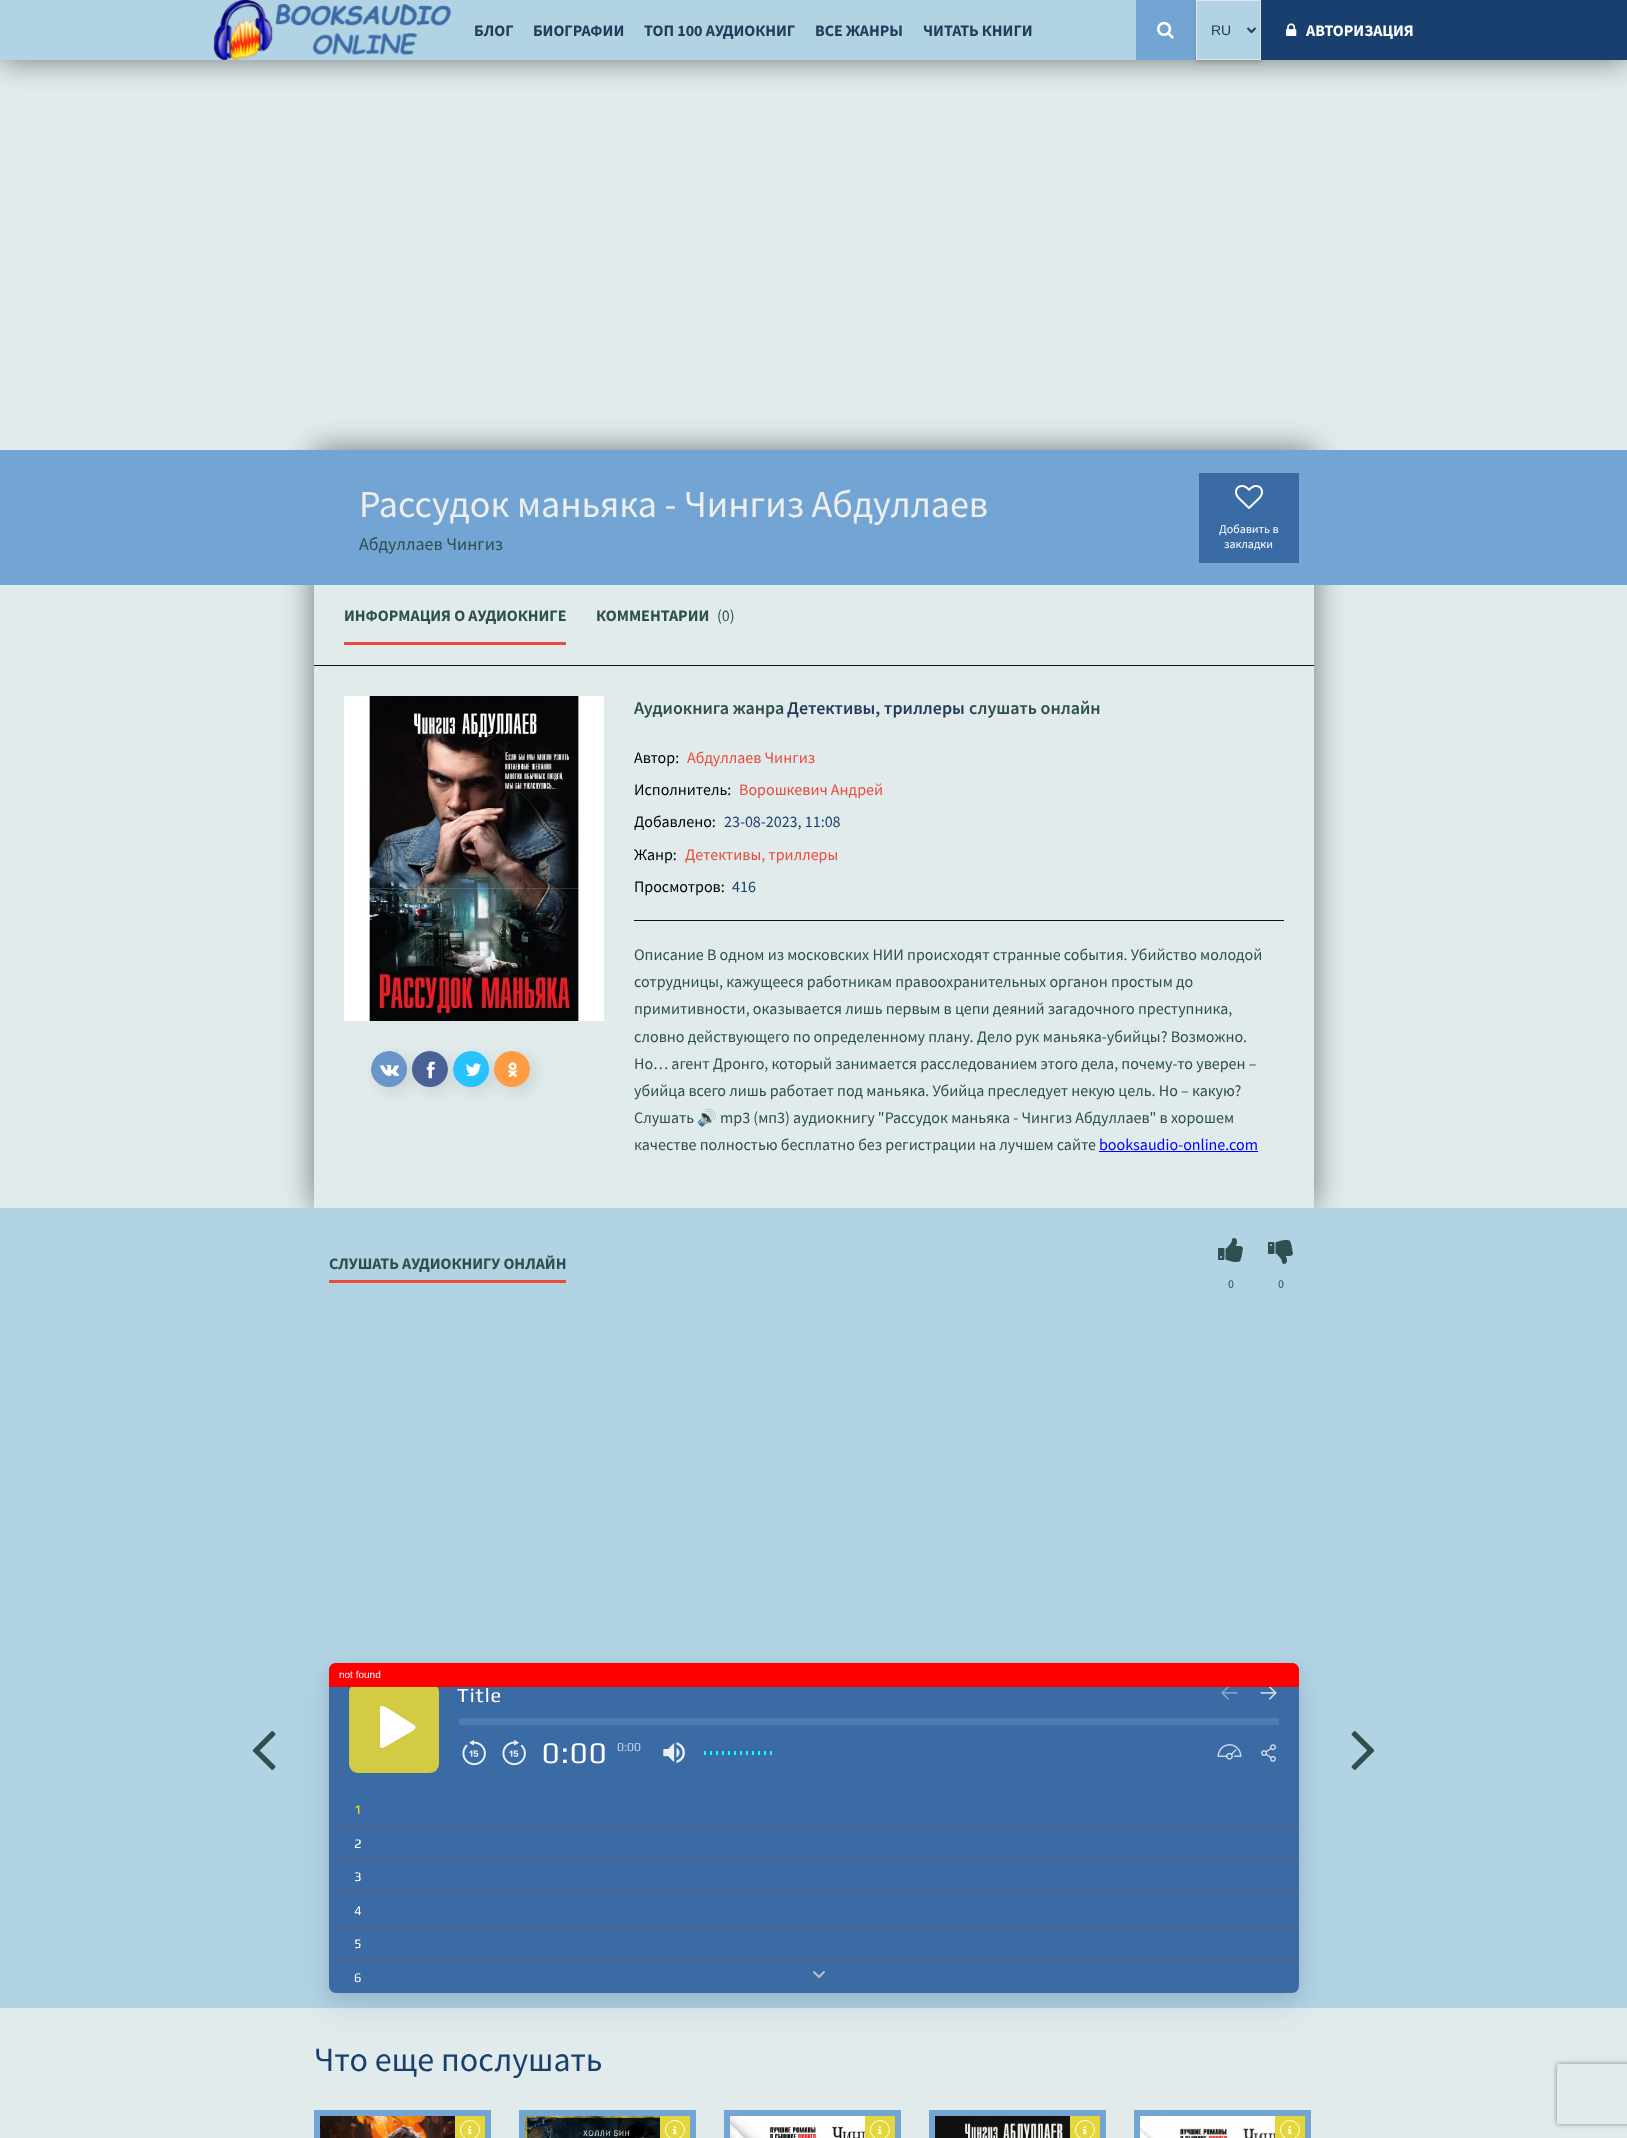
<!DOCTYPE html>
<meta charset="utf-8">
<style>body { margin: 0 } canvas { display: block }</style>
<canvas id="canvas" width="1627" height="2138"></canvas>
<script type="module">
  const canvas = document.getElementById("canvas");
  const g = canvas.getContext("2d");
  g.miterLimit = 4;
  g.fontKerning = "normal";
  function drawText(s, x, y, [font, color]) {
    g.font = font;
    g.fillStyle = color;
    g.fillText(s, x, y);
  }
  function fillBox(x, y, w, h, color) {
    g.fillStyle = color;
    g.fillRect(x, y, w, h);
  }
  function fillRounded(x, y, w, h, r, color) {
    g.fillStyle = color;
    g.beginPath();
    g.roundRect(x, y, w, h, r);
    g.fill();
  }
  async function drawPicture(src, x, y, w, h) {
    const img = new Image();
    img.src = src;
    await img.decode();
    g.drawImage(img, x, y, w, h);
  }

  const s1 = ["bold 16px Source Sans Pro", "#243C5C"];
  const s2 = ["14px Liberation Sans", "#243C5C"];
  const s3 = ["bold 16px Source Sans Pro", "#FFFFFF"];
  const s4 = ["38px Source Sans Pro", "#EEEEEE"];
  const s5 = ["18px Source Sans Pro", "#2F4F4F"];
  const s6 = ["12px Source Sans Pro", "#FFFFFF"];
  const s7 = ["bold 16px Source Sans Pro", "#2F4F4F"];
  const s8 = ["16px Source Sans Pro", "#2F4F4F"];
  const s9 = ["600 18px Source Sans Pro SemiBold", "#2F4F4F"];
  const s10 = ["600 18px Source Sans Pro SemiBold", "#243C5C"];
  const s11 = ["16px Source Sans Pro", "#000000"];
  const s12 = ["16px Source Sans Pro", "#E74C3C"];
  const s13 = ["16px Source Sans Pro", "#193F6E"];
  const s14 = ["16px Noto Color Emoji", "#2F4F4F"];
  const s15 = ["16px Source Sans Pro", "#0000FF"];
  const s16 = ["12px Source Sans Pro", "#2F4F4F"];
  const s17 = ["10px Liberation Sans", "#FFFFFF"];
  const s18 = ["20px Play", "#FFFFFF"];
  const s19 = ["30px Play", "#FFFFFF"];
  const s20 = ["12px Play", "#C4D3E4"];
  const s21 = ["13px Play", "#FFEA00"];
  const s22 = ["13px Play", "#FFFFFF"];
  const s23 = ["34px Source Sans Pro", "#193F6E"];

  fillBox(0, 0, 1627, 2138, "#E1EBEC");
  g.fillStyle = "rgba(0, 0, 0, 0.5)";
  g.filter = "blur(15px)";
  g.beginPath();
  g.rect(0, 0, 1627, 60);
  g.fill();
  g.filter = "none";
  fillBox(0, 0, 1260, 60, "#B1D3E3");
  await drawPicture("pic1.png", 213, 0, 239, 60);
  drawText("БЛОГ", 474, 36, s1);
  drawText("БИОГРАФИИ", 533, 36, s1);
  drawText("ТОП 100 АУДИОКНИГ", 644, 36, s1);
  drawText("ВСЕ ЖАНРЫ", 815, 36, s1);
  drawText("ЧИТАТЬ КНИГИ", 923, 36, s1);
  fillBox(1136, 0, 60, 60, "#72A5D3");
  await drawPicture("pic2.png", 1157, 21, 17, 18);
  g.save();
  g.beginPath();
  g.moveTo(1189, 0);
  g.lineTo(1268, 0);
  g.lineTo(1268, 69);
  g.lineTo(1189, 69);
  g.closePath();
  g.moveTo(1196, 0);
  g.lineTo(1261, 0);
  g.lineTo(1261, 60);
  g.lineTo(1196, 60);
  g.closePath();
  g.clip("evenodd");
  g.fillStyle = "rgba(68, 68, 68, 0.3)";
  g.filter = "blur(2px)";
  g.beginPath();
  g.rect(1196, 2, 65, 60);
  g.fill();
  g.filter = "none";
  g.restore();
  g.strokeStyle = "#E3E3E3";
  g.strokeRect(1196.5, 0.5, 64, 59);
  g.beginPath();
  g.moveTo(1247.5, 28);
  g.lineTo(1251.5, 32);
  g.lineTo(1255.5, 28);
  g.strokeStyle = "#243C5C";
  g.lineWidth = 2;
  g.stroke();
  drawText("RU", 1211, 35, s2);
  fillBox(1261, 0, 366, 60, "#193F6E");
  await drawPicture("pic3.png", 1286, 23, 11, 13);
  drawText("АВТОРИЗАЦИЯ", 1306, 36, s3);
  g.save();
  g.beginPath();
  g.moveTo(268, 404);
  g.lineTo(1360, 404);
  g.lineTo(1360, 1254);
  g.lineTo(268, 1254);
  g.closePath();
  g.moveTo(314, 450);
  g.lineTo(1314, 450);
  g.lineTo(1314, 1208);
  g.lineTo(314, 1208);
  g.closePath();
  g.clip("evenodd");
  g.fillStyle = "rgba(0, 0, 0, 0.5)";
  g.filter = "blur(15px)";
  g.beginPath();
  g.rect(314, 450, 1000, 758);
  g.fill();
  g.filter = "none";
  g.restore();
  fillBox(0, 450, 1627, 135, "#72A5D3");
  drawText("Рассудок маньяка - Чингиз Абдуллаев", 359, 517, s4);
  drawText("Абдуллаев Чингиз", 359, 550, s5);
  fillBox(1199, 473, 100, 90, "#3B6BA5");
  await drawPicture("pic4.png", 1235, 485, 28, 24);
  drawText("Добавить в", 1219, 533, s6);
  drawText("закладки", 1224, 548, s6);
  fillBox(314, 665, 1000, 1, "#111111");
  fillBox(344, 642, 222, 3, "#E74C3C");
  drawText("ИНФОРМАЦИЯ О АУДИОКНИГЕ", 344, 621, s7);
  drawText("КОММЕНТАРИИ", 596, 621, s7);
  drawText("(0)", 717, 621, s8);
  await drawPicture("pic5.png", 344, 696, 260, 325);
  g.fillStyle = "rgba(0, 0, 0, 0.1)";
  g.filter = "blur(8px)";
  g.beginPath();
  g.roundRect(376, 1056, 36, 36, 18);
  g.fill();
  g.filter = "none";
  await drawPicture("pic6.png", 371, 1051, 36, 36);
  g.filter = "blur(8px)";
  g.beginPath();
  g.roundRect(417, 1056, 36, 36, 18);
  g.fill();
  g.filter = "none";
  await drawPicture("pic7.png", 412, 1051, 36, 36);
  g.filter = "blur(8px)";
  g.beginPath();
  g.roundRect(458, 1056, 36, 36, 18);
  g.fill();
  g.filter = "none";
  await drawPicture("pic8.png", 453, 1051, 36, 36);
  g.filter = "blur(8px)";
  g.beginPath();
  g.roundRect(499, 1056, 36, 36, 18);
  g.fill();
  g.filter = "none";
  await drawPicture("pic9.png", 494, 1051, 36, 36);
  drawText("Аудиокнига жанра", 634, 714, s9);
  drawText("Детективы, триллеры", 787, 714, s10);
  drawText("слушать онлайн", 969, 714, s9);
  drawText("Автор:", 634, 763, s11);
  drawText("Абдуллаев Чингиз", 687, 763, s12);
  drawText("Исполнитель:", 634, 795, s11);
  drawText("Ворошкевич Андрей", 739, 795, s12);
  drawText("Добавлено:", 634, 827, s11);
  drawText("23-08-2023, 11:08", 724, 827, s13);
  drawText("Жанр:", 634, 860, s11);
  drawText("Детективы, триллеры", 685, 860, s12);
  drawText("Просмотров:", 634, 892, s11);
  drawText("416", 732, 892, s13);
  fillBox(634, 920, 650, 1, "#111111");
  drawText("Описание В одном из московских НИИ происходят странные события. Убийство молодой", 634, 960, s8);
  drawText("сотрудницы, кажущееся работникам правоохранительных органон простым до", 634, 987, s8);
  drawText("примитивности, оказывается лишь первым в цепи деяний загадочного преступника,", 634, 1014, s8);
  drawText("словно действующего по определенному плану. Дело рук маньяка-убийцы? Возможно.", 634, 1042, s8);
  drawText("Но… агент Дронго, который занимается расследованием этого дела, почему-то уверен –", 634, 1069, s8);
  drawText("убийца всего лишь работает под маньяка. Убийца преследует некую цель. Но – какую?", 634, 1096, s8);
  drawText("Слушать", 634, 1123, s8);
  drawText("🔊", 697, 1123, s14);
  drawText("mp3 (мп3) аудиокнигу \"Рассудок маньяка - Чингиз Абдуллаев\" в хорошем", 720, 1123, s8);
  drawText("качестве полностью бесплатно без регистрации на лучшем сайте", 634, 1150, s8);
  drawText("booksaudio-online.com", 1099, 1150, s15);
  fillBox(1099, 1151, 159, 1, "#0000FF");
  fillBox(0, 1208, 1627, 800, "#B1D3E3");
  fillBox(329, 1280, 237, 3, "#E74C3C");
  drawText("СЛУШАТЬ АУДИОКНИГУ ОНЛАЙН", 329, 1269, s7);
  await drawPicture("pic10.png", 1218, 1238, 25, 24);
  drawText("0", 1228, 1288, s16);
  await drawPicture("pic11.png", 1268, 1240, 25, 24);
  drawText("0", 1278, 1288, s16);
  g.fillStyle = "rgba(50, 50, 93, 0.1)";
  g.filter = "blur(17.5px)";
  g.beginPath();
  g.roundRect(329, 1678, 970, 330, 7);
  g.fill();
  g.filter = "none";
  await drawPicture("pic12.png", 252, 1731, 24, 39);
  g.fillStyle = "rgba(0, 0, 0, 0.07)";
  g.filter = "blur(7.5px)";
  g.beginPath();
  g.roundRect(329, 1668, 970, 330, 7);
  g.fill();
  g.filter = "none";
  fillRounded(329, 1663, 970, 330, 7, "#3B6BA5");
  fillRounded(349, 1683, 90, 90, 9, "#D4CB44");
  g.fillStyle = "#FF0000";
  g.beginPath();
  g.roundRect(329, 1663, 970, 24, [7, 7, 0, 0]);
  g.fill();
  drawText("not found", 339, 1678, s17);
  g.beginPath();
  g.moveTo(414, 1725);
  g.lineTo(389, 1709);
  g.bezierCurveTo(389, 1709, 380, 1703, 380, 1708);
  g.lineTo(380, 1746);
  g.bezierCurveTo(380, 1747, 381, 1748, 383, 1748);
  g.lineTo(409, 1733);
  g.bezierCurveTo(411, 1732, 419, 1728, 414, 1725);
  g.closePath();
  g.fill();
  g.letterSpacing = "1px";
  drawText("Title", 457, 1702, s18);
  await drawPicture("pic13.png", 1221, 1687, 17, 13);
  await drawPicture("pic14.png", 1260, 1687, 17, 13);
  fillRounded(459, 1718, 820, 7, 1.5, "#4F7AAE");
  await drawPicture("pic15.png", 462, 1740, 24, 26);
  await drawPicture("pic16.png", 502, 1740, 24, 26);
  g.letterSpacing = "1.5px";
  drawText("0:00", 542, 1763, s19);
  g.letterSpacing = "0px";
  drawText("0:00", 617, 1751, s20);
  await drawPicture("pic17.png", 663, 1742, 22, 21);
  fillBox(704, 1751, 2, 4, "#0FFFFF");
  fillBox(710, 1751, 2, 4, "#0FFFFF");
  fillBox(716, 1751, 2, 4, "#0FFFFF");
  fillBox(722, 1751, 2, 4, "#0FFFFF");
  fillBox(728, 1751, 2, 4, "#0FFFFF");
  fillBox(734, 1751, 2, 4, "#0FFFFF");
  fillBox(740, 1751, 2, 4, "#0FFFFF");
  fillBox(746, 1751, 2, 4, "#0FFFFF");
  fillBox(752, 1751, 2, 4, "#0FFFFF");
  fillBox(758, 1751, 2, 4, "#0FFFFF");
  fillBox(764, 1751, 2, 4, "#0FFFFF");
  fillBox(770, 1751, 2, 4, "#0FFFFF");
  await drawPicture("pic18.png", 1217, 1744, 25, 16);
  await drawPicture("pic19.png", 1261, 1744, 15, 18);
  drawText("1", 354, 1814, s21);
  fillBox(329, 1826, 970, 1, "#666666");
  drawText("2", 354, 1848, s22);
  fillBox(329, 1859, 970, 1, "#666666");
  drawText("3", 354, 1881, s22);
  fillBox(329, 1893, 970, 1, "#666666");
  drawText("4", 354, 1915, s22);
  fillBox(329, 1926, 970, 1, "#666666");
  drawText("5", 354, 1948, s22);
  fillBox(329, 1960, 970, 1, "#666666");
  drawText("6", 354, 1982, s22);
  g.beginPath();
  g.moveTo(814, 1972);
  g.lineTo(819, 1977);
  g.moveTo(819, 1977);
  g.lineTo(824, 1972);
  g.strokeStyle = "#BFBFBF";
  g.lineCap = "round";
  g.stroke();
  await drawPicture("pic20.png", 1351, 1731, 24, 39);
  drawText("Что еще послушать", 314, 2071, s23);
  g.strokeStyle = "#72A5D3";
  g.lineWidth = 1;
  g.strokeRect(314.5, 2110.5, 176, 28);
  g.lineWidth = 5;
  g.strokeRect(317.5, 2113.5, 170, 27);
  await drawPicture("pic21.png", 320, 2116, 135, 22);
  fillBox(455, 2116, 30, 22, "#E5D639");
  g.beginPath();
  g.arc(470, 2130, 9.5, 0, Math.PI * 2);
  g.strokeStyle = "#FFFFFF";
  g.lineWidth = 1;
  g.stroke();
  await drawPicture("pic22.png", 468, 2126, 4, 8);
  g.strokeStyle = "#72A5D3";
  g.strokeRect(519.5, 2110.5, 176, 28);
  g.lineWidth = 5;
  g.strokeRect(522.5, 2113.5, 170, 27);
  await drawPicture("pic23.png", 525, 2116, 135, 22);
  fillBox(660, 2116, 30, 22, "#E5D639");
  g.beginPath();
  g.arc(675, 2130, 9.5, 0, Math.PI * 2);
  g.strokeStyle = "#FFFFFF";
  g.lineWidth = 1;
  g.stroke();
  await drawPicture("pic22.png", 673, 2126, 4, 8);
  g.strokeStyle = "#72A5D3";
  g.strokeRect(724.5, 2110.5, 176, 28);
  g.lineWidth = 5;
  g.strokeRect(727.5, 2113.5, 170, 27);
  await drawPicture("pic24.png", 730, 2116, 135, 22);
  fillBox(865, 2116, 30, 22, "#E5D639");
  g.beginPath();
  g.arc(880, 2130, 9.5, 0, Math.PI * 2);
  g.strokeStyle = "#FFFFFF";
  g.lineWidth = 1;
  g.stroke();
  await drawPicture("pic22.png", 878, 2126, 4, 8);
  g.strokeStyle = "#72A5D3";
  g.strokeRect(929.5, 2110.5, 176, 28);
  g.lineWidth = 5;
  g.strokeRect(932.5, 2113.5, 170, 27);
  await drawPicture("pic25.png", 935, 2116, 135, 22);
  fillBox(1070, 2116, 30, 22, "#E5D639");
  g.beginPath();
  g.arc(1085, 2130, 9.5, 0, Math.PI * 2);
  g.strokeStyle = "#FFFFFF";
  g.lineWidth = 1;
  g.stroke();
  await drawPicture("pic22.png", 1083, 2126, 4, 8);
  g.strokeStyle = "#72A5D3";
  g.strokeRect(1134.5, 2110.5, 176, 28);
  g.lineWidth = 5;
  g.strokeRect(1137.5, 2113.5, 170, 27);
  await drawPicture("pic26.png", 1140, 2116, 135, 22);
  fillBox(1275, 2116, 30, 22, "#E5D639");
  g.beginPath();
  g.arc(1290, 2130, 9.5, 0, Math.PI * 2);
  g.strokeStyle = "#FFFFFF";
  g.lineWidth = 1;
  g.stroke();
  await drawPicture("pic22.png", 1288, 2126, 4, 8);
  g.save();
  g.beginPath();
  g.moveTo(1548, 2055);
  g.lineTo(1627, 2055);
  g.lineTo(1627, 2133);
  g.lineTo(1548, 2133);
  g.closePath();
  g.moveTo(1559, 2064);
  g.lineTo(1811, 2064);
  g.bezierCurveTo(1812, 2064, 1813, 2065, 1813, 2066);
  g.lineTo(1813, 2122);
  g.bezierCurveTo(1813, 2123, 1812, 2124, 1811, 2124);
  g.lineTo(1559, 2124);
  g.bezierCurveTo(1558, 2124, 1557, 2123, 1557, 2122);
  g.lineTo(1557, 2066);
  g.bezierCurveTo(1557, 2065, 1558, 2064, 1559, 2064);
  g.closePath();
  g.clip("evenodd");
  g.fillStyle = "#808080";
  g.filter = "blur(2.5px)";
  g.beginPath();
  g.roundRect(1557, 2064, 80, 60, 2);
  g.fill();
  g.filter = "none";
  g.restore();
</script>
